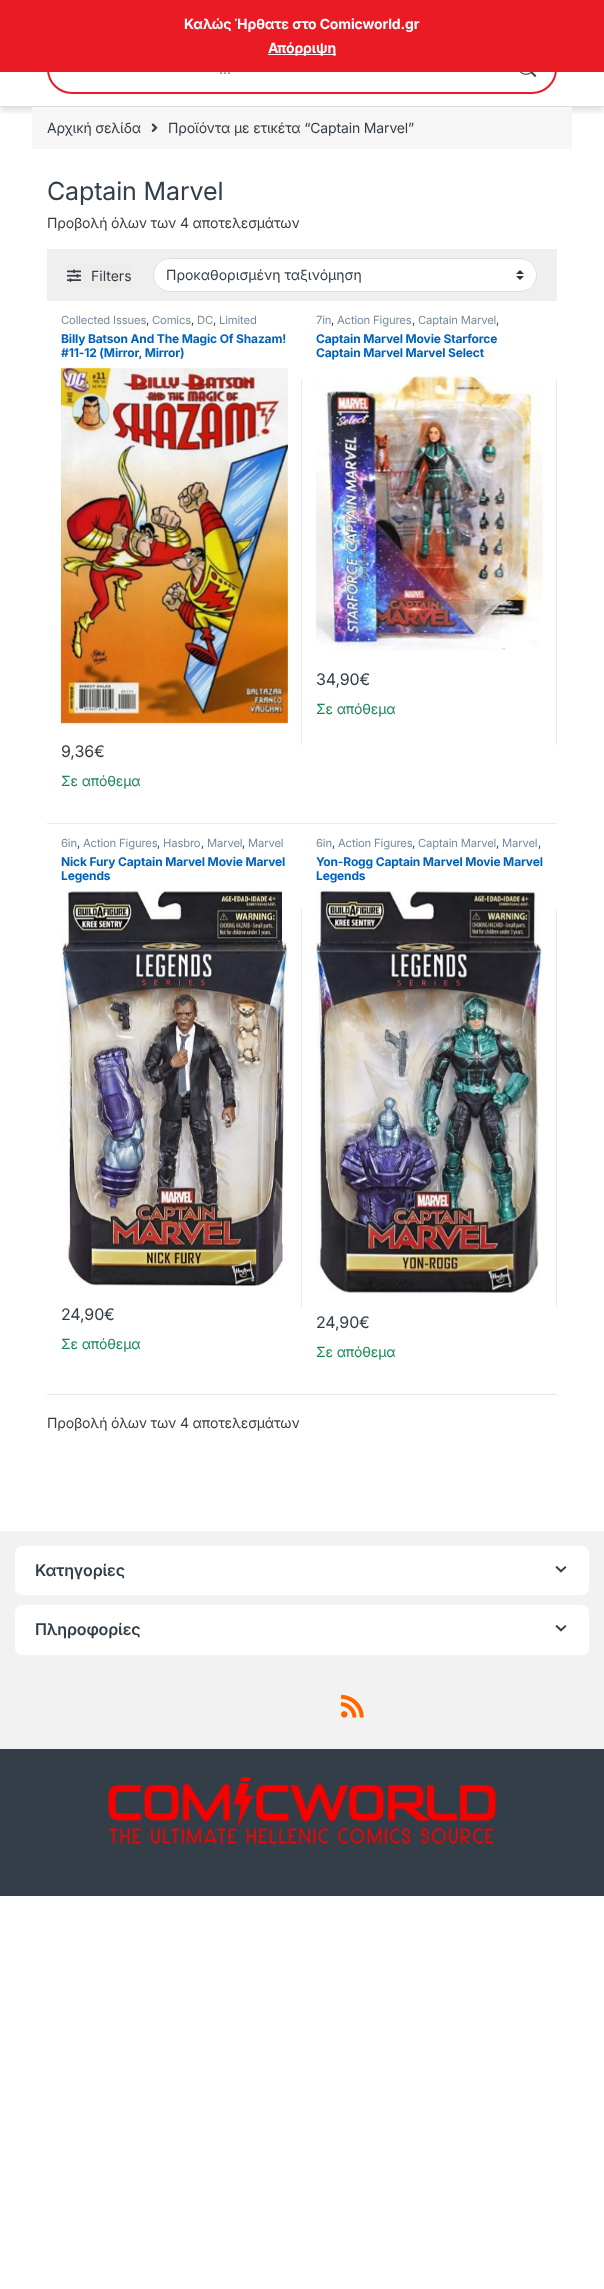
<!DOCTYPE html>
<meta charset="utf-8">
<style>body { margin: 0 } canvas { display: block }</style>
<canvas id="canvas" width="604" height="2289"></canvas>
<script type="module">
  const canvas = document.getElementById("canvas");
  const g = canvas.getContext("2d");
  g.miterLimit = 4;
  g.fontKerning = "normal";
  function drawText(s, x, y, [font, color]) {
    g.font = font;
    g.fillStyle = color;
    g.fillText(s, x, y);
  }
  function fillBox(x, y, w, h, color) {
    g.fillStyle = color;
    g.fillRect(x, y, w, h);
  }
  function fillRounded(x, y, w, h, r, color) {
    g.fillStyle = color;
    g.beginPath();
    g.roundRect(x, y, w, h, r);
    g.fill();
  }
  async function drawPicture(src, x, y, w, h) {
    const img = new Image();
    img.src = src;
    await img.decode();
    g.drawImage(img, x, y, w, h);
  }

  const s1 = ["bold 14px Inter", "#FFFFFF"];
  const s2 = ["14px Inter", "#6C757D"];
  const s3 = ["14px Inter", "#333E48"];
  const s4 = ["25px Inter", "#333E48"];
  const s5 = ["11.25px Inter", "#768B9E"];
  const s6 = ["11.25px Inter", "#333E48"];
  const s7 = ["bold 12px Inter", "#0062BD"];
  const s8 = ["16px Inter", "#333E48"];
  const s9 = ["14px Inter", "#198754"];
  const s10 = ["600 16px Inter", "#333E48"];

  fillBox(0, 0, 604, 2289, "#FFFFFF");
  g.save();
  g.beginPath();
  g.rect(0, 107, 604, 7);
  g.clip();
  g.fillStyle = "rgba(0, 0, 0, 0.12)";
  g.filter = "blur(3px)";
  g.beginPath();
  g.rect(0, 6, 604, 105);
  g.fill();
  g.filter = "none";
  g.restore();
  g.beginPath();
  g.roundRect(48, 45, 508, 48, 24);
  g.strokeStyle = "#EA1B25";
  g.lineWidth = 2;
  g.stroke();
  fillBox(0, 0, 604, 72, "#EA1B25");
  g.letterSpacing = "-0.15px";
  drawText("Καλώς Ήρθατε στο Comicworld.gr", 184, 29, s1);
  fillBox(268, 54, 68, 1, "#FFFFFF");
  drawText("Απόρριψη", 268, 53, s1);
  fillBox(0, 106, 604, 1, "#DDDDDD");
  g.letterSpacing = "0px";
  drawText("…", 219, 74, s2);
  await drawPicture("pic1.png", 520, 72, 17, 6);
  fillBox(32, 107, 540, 42, "#F7F6F6");
  g.letterSpacing = "-0.15px";
  drawText("Αρχική σελίδα", 47, 133, s3);
  await drawPicture("pic2.png", 151, 123, 7, 10);
  drawText("Προϊόντα με ετικέτα “Captain Marvel”", 168, 133, s3);
  drawText("Captain Marvel", 47, 200, s4);
  drawText("Προβολή όλων των 4 αποτελεσμάτων", 47, 228, s3);
  fillBox(47, 249, 510, 52, "#EFEFEF");
  fillBox(67, 264, 65, 24, "#EFECEC");
  await drawPicture("pic3.png", 67, 269, 14, 13);
  g.letterSpacing = "0px";
  drawText("Filters", 91, 281, s3);
  fillRounded(153, 258, 384, 34, 17, "#FFFFFF");
  await drawPicture("pic4.png", 516, 270, 8, 10);
  g.beginPath();
  g.roundRect(153.5, 258.5, 383, 33, 16.5);
  g.strokeStyle = "#DDDDDD";
  g.lineWidth = 1;
  g.stroke();
  drawText("Προκαθορισμένη ταξινόμηση", 166, 280, s3);
  fillBox(47, 823, 510, 1, "#EAEAEA");
  g.letterSpacing = "-0.15px";
  drawText("Collected Issues", 61, 324, s5);
  drawText(",", 146, 324, s6);
  drawText("Comics", 152, 324, s5);
  drawText(",", 191, 324, s6);
  drawText("DC", 197, 324, s5);
  drawText(",", 213, 324, s6);
  drawText("Limited", 219, 324, s5);
  drawText("Billy Batson And The Magic Of Shazam!", 61, 343, s7);
  drawText("#11-12 (Mirror, Mirror)", 61, 357, s7);
  await drawPicture("pic5.png", 61, 367, 227, 357);
  drawText("9,36€", 61, 757, s8);
  drawText("Σε απόθεμα", 61, 786, s9);
  fillBox(301, 379, 1, 366, "#EAEAEA");
  drawText("7in", 316, 324, s5);
  drawText(",", 331, 324, s6);
  drawText("Action Figures", 337, 324, s5);
  drawText(",", 412, 324, s6);
  drawText("Captain Marvel", 418, 324, s5);
  drawText(",", 496, 324, s6);
  drawText("Captain Marvel Movie Starforce", 316, 343, s7);
  drawText("Captain Marvel Marvel Select", 316, 357, s7);
  await drawPicture("pic6.png", 316, 368, 227, 283);
  drawText("34,90€", 316, 685, s8);
  drawText("Σε απόθεμα", 316, 714, s9);
  fillBox(556, 379, 1, 366, "#EAEAEA");
  drawText("6in", 61, 847, s5);
  drawText(",", 77, 847, s6);
  drawText("Action Figures", 83, 847, s5);
  drawText(",", 157, 847, s6);
  drawText("Hasbro", 163, 847, s5);
  drawText(",", 201, 847, s6);
  drawText("Marvel", 207, 847, s5);
  drawText(",", 242, 847, s6);
  drawText("Marvel", 248, 847, s5);
  drawText("Nick Fury Captain Marvel Movie Marvel", 61, 866, s7);
  drawText("Legends", 61, 880, s7);
  await drawPicture("pic7.png", 61, 891, 227, 395);
  drawText("24,90€", 61, 1320, s8);
  drawText("Σε απόθεμα", 61, 1349, s9);
  fillBox(301, 909, 1, 399, "#EAEAEA");
  drawText("6in", 316, 847, s5);
  drawText(",", 332, 847, s6);
  drawText("Action Figures", 338, 847, s5);
  drawText(",", 412, 847, s6);
  drawText("Captain Marvel", 418, 847, s5);
  drawText(",", 496, 847, s6);
  drawText("Marvel", 502, 847, s5);
  drawText(",", 538, 847, s6);
  drawText("Yon-Rogg Captain Marvel Movie Marvel", 316, 866, s7);
  drawText("Legends", 316, 880, s7);
  await drawPicture("pic8.png", 316, 890, 227, 404);
  drawText("24,90€", 316, 1328, s8);
  drawText("Σε απόθεμα", 316, 1357, s9);
  fillBox(556, 909, 1, 399, "#EAEAEA");
  fillBox(47, 1394, 510, 1, "#E7E7E7");
  drawText("Προβολή όλων των 4 αποτελεσμάτων", 47, 1428, s3);
  fillBox(0, 1531, 604, 218, "#F2F2F2");
  fillRounded(15, 1546, 574, 49, 7, "#FFFFFF");
  drawText("Κατηγορίες", 35, 1576, s10);
  await drawPicture("pic9.png", 555, 1566, 12, 7);
  fillRounded(15, 1605, 574, 50, 7, "#FFFFFF");
  drawText("Πληροφορίες", 35, 1635, s10);
  await drawPicture("pic9.png", 555, 1625, 12, 7);
  await drawPicture("pic10.png", 341, 1694, 23, 24);
  fillBox(0, 1749, 604, 147, "#333E48");
  await drawPicture("pic11.png", 108, 1777, 388, 67);
</script>
